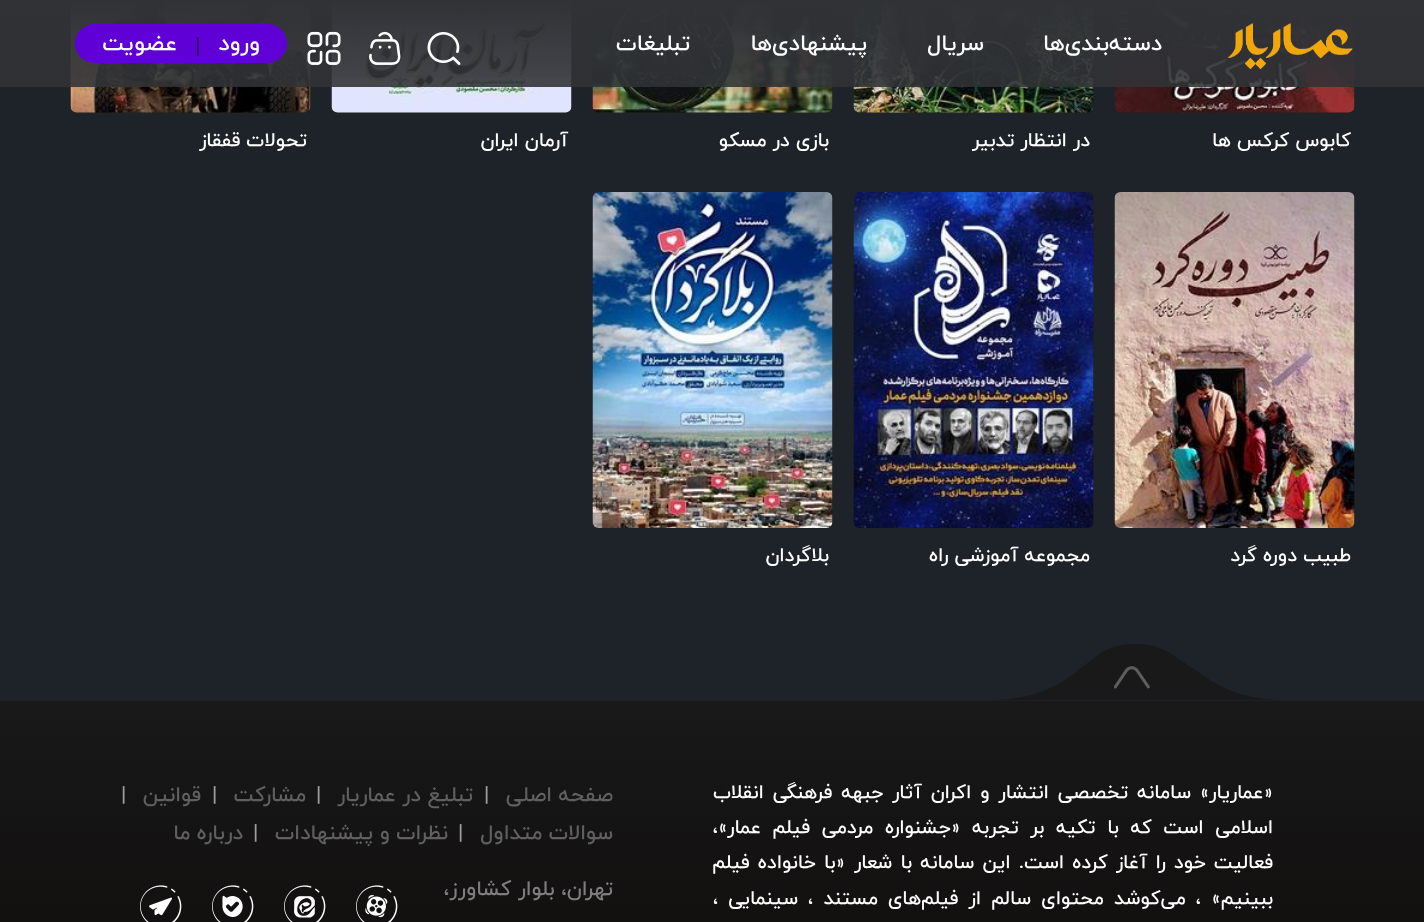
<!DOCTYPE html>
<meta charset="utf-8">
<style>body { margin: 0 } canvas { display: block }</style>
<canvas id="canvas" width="1424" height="922"></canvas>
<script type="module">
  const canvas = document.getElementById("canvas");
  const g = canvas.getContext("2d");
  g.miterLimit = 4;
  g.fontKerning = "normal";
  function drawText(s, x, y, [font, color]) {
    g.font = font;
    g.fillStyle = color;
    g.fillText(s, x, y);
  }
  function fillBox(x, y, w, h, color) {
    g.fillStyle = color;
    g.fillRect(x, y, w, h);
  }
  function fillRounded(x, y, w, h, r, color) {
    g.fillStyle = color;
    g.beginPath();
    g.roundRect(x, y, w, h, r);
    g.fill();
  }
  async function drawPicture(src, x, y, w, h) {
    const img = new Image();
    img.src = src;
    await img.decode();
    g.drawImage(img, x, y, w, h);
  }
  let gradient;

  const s1 = ["500 22.5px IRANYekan", "#FFFFFF"];
  const s2 = ["500 22.5px IRANYekan", "#2E0066"];
  const s3 = ["500 19.5px IRANYekan", "#FFFFFF"];
  const s4 = ["500 21px IRANYekan", "#606060"];
  const s5 = ["500 21px IRANYekan", "#9E9E9E"];
  const s6 = ["500 21px IRANYekan", "#7E7E7E"];

  fillBox(0, 0, 1424, 922, "#1E232A");
  fillRounded(1115, -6, 240, 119, 6, "#202020");
  await drawPicture("pic5.png", 1114, 1, 241, 112);
  fillRounded(854, -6, 240, 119, 6, "#202020");
  await drawPicture("pic6.png", 853, 1, 241, 112);
  fillRounded(593, -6, 240, 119, 6, "#202020");
  await drawPicture("pic7.png", 592, 1, 241, 112);
  fillRounded(332, -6, 240, 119, 6, "#202020");
  await drawPicture("pic8.png", 331, 1, 241, 112);
  fillRounded(71, -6, 240, 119, 6, "#202020");
  await drawPicture("pic9.png", 70, 1, 241, 112);
  fillBox(0, 1, 1424, 86, "rgba(48, 50, 54, 0.89)");
  gradient = g.createLinearGradient(713, 0, 713, 87);
  gradient.addColorStop(0, "#303236");
  gradient.addColorStop(1, "rgba(48, 50, 54, 0)");
  g.fillStyle = gradient;
  g.fillRect(0, 0, 1424, 78);
  await drawPicture("pic1.png", 1227, 23, 126, 46);
  g.direction = "rtl";
  drawText("دسته‌بندی‌ها", 1162, 50, s1);
  drawText("سریال", 984, 50, s1);
  drawText("پیشنهادی‌ها", 867, 50, s1);
  drawText("تبلیغات", 690, 50, s1);
  await drawPicture("pic2.png", 427, 32, 34, 33);
  await drawPicture("pic3.png", 369, 31, 32, 34);
  await drawPicture("pic4.png", 307, 31, 34, 34);
  g.fillStyle = "#5F00D6";
  g.beginPath();
  g.roundRect(200, 24, 87, 39, [0, 19.5, 19.5, 0]);
  g.fill();
  drawText("ورود", 260, 50, s1);
  fillBox(195, 24, 5, 39, "#5F00D6");
  g.direction = "ltr";
  drawText("|", 195, 53, s2);
  g.fillStyle = "#5F00D6";
  g.beginPath();
  g.roundRect(75, 24, 120, 39, [19.5, 0, 0, 19.5]);
  g.fill();
  g.direction = "rtl";
  drawText("عضویت", 177, 50, s1);
  drawText("کابوس کرکس ها", 1351, 146, s3);
  drawText("در انتظار تدبیر", 1090, 146, s3);
  drawText("بازی در مسکو", 829, 146, s3);
  drawText("آرمان ایران", 568, 146, s3);
  drawText("تحولات قفقاز", 307, 146, s3);
  fillRounded(1115, 192, 240, 336, 6, "#202020");
  await drawPicture("pic10.png", 1114, 192, 241, 336);
  drawText("طبیب دوره گرد", 1351, 561, s3);
  fillRounded(854, 192, 240, 336, 6, "#202020");
  await drawPicture("pic11.png", 853, 192, 241, 336);
  drawText("مجموعه آموزشی راه", 1090, 561, s3);
  fillRounded(593, 192, 240, 336, 6, "#202020");
  await drawPicture("pic12.png", 592, 192, 241, 336);
  drawText("بلاگردان", 829, 561, s3);
  await drawPicture("pic13.png", 983, 644, 299, 57);
  await drawPicture("pic14.png", 1114, 666, 36, 23);
  gradient = g.createLinearGradient(713, 700, 713, 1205);
  gradient.addColorStop(0, "#191919");
  gradient.addColorStop(1, "#090504");
  g.fillStyle = gradient;
  g.fillRect(0, 701, 1424, 221);
  drawText("«عماریار»", 1273, 798, s3);
  g.wordSpacing = "2.75px";
  drawText("سامانه تخصصی انتشار و اکران آثار جبهه فرهنگی انقلاب", 1191, 798, s3);
  g.wordSpacing = "5.5px";
  drawText("اسلامی است که با تکیه بر تجربه «جشنواره مردمی فیلم عمار»،", 1273, 833, s3);
  g.wordSpacing = "2px";
  drawText("فعالیت خود را آغاز کرده است. این سامانه با شعار", 1273, 868, s3);
  drawText("«با خانواده فیلم", 845, 868, s3);
  g.wordSpacing = "0px";
  drawText("ببینیم»", 1273, 904, s3);
  g.wordSpacing = "4px";
  drawText("، می‌کوشد محتوای سالم از فیلم‌های", 1201, 904, s3);
  g.wordSpacing = "0px";
  drawText("مستند", 878, 904, s3);
  g.direction = "ltr";
  drawText("،", 808, 904, s3);
  g.direction = "rtl";
  drawText("سینمایی", 798, 904, s3);
  g.direction = "ltr";
  drawText("،", 713, 904, s3);
  g.direction = "rtl";
  drawText("صفحه اصلی", 613, 801, s4);
  g.direction = "ltr";
  drawText("|", 484, 801, s5);
  g.direction = "rtl";
  drawText("تبلیغ در عماریار", 473, 801, s4);
  g.direction = "ltr";
  drawText("|", 316, 801, s5);
  g.direction = "rtl";
  drawText("مشارکت", 306, 801, s4);
  g.direction = "ltr";
  drawText("|", 212, 801, s5);
  g.direction = "rtl";
  drawText("قوانین", 201, 801, s4);
  g.direction = "ltr";
  drawText("|", 121, 801, s5);
  g.direction = "rtl";
  drawText("سوالات متداول", 613, 839, s4);
  g.direction = "ltr";
  drawText("|", 458, 839, s5);
  g.direction = "rtl";
  drawText("نظرات و پیشنهادات", 448, 839, s4);
  g.direction = "ltr";
  drawText("|", 253, 839, s5);
  g.direction = "rtl";
  drawText("درباره ما", 243, 839, s4);
  drawText("تهران، بلوار کشاورز،", 613, 895, s6);
  await drawPicture("pic15.png", 356, 885, 42, 37);
  await drawPicture("pic16.png", 284, 885, 42, 37);
  await drawPicture("pic17.png", 212, 885, 42, 37);
  await drawPicture("pic18.png", 140, 885, 42, 37);
</script>
